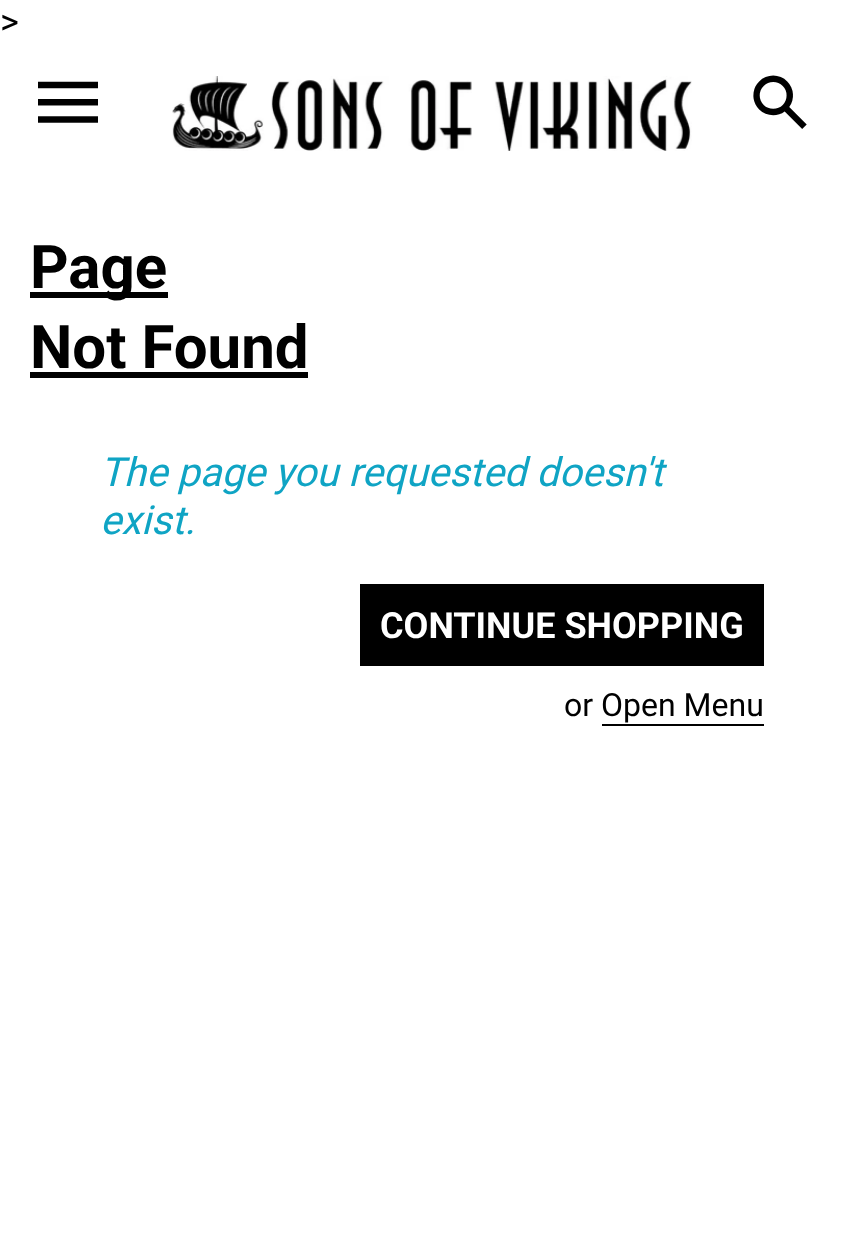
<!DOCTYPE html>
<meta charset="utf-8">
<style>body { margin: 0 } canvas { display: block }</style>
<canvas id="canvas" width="864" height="1245"></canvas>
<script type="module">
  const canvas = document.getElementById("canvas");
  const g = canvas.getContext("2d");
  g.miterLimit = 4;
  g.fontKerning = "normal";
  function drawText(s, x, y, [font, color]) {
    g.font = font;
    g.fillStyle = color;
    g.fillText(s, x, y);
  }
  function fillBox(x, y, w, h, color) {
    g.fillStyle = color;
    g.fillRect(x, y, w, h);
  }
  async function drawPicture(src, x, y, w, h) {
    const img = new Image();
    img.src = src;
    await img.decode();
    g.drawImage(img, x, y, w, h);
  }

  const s1 = ["36px Roboto", "#000000"];
  const s2 = ["60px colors", "#000000"];
  const s3 = ["bold 60px Roboto", "#000000"];
  const s4 = ["italic 40px Roboto", "#0FA4C4"];
  const s5 = ["bold 36px Roboto", "#FFFFFF"];
  const s6 = ["32px Roboto", "#000000"];

  fillBox(0, 0, 864, 1245, "#FFFFFF");
  drawText(">", 0, 34, s1);
  drawText("1", 38, 136, s2);
  await drawPicture("pic1.png", 172, 76, 520, 75);
  drawText("2", 750, 136, s2);
  fillBox(30, 292, 138, 6, "#000000");
  drawText("Page", 30, 288, s3);
  drawText("Not Found", 30, 368, s3);
  fillBox(30, 372, 278, 6, "#000000");
  drawText("The page you requested doesn't", 100, 486, s4);
  drawText("exist.", 100, 534, s4);
  fillBox(360, 584, 404, 82, "#000000");
  drawText("CONTINUE SHOPPING", 380, 638, s5);
  drawText("or Open Menu", 564, 716, s6);
  fillBox(602, 724, 162, 2, "#000000");
</script>
